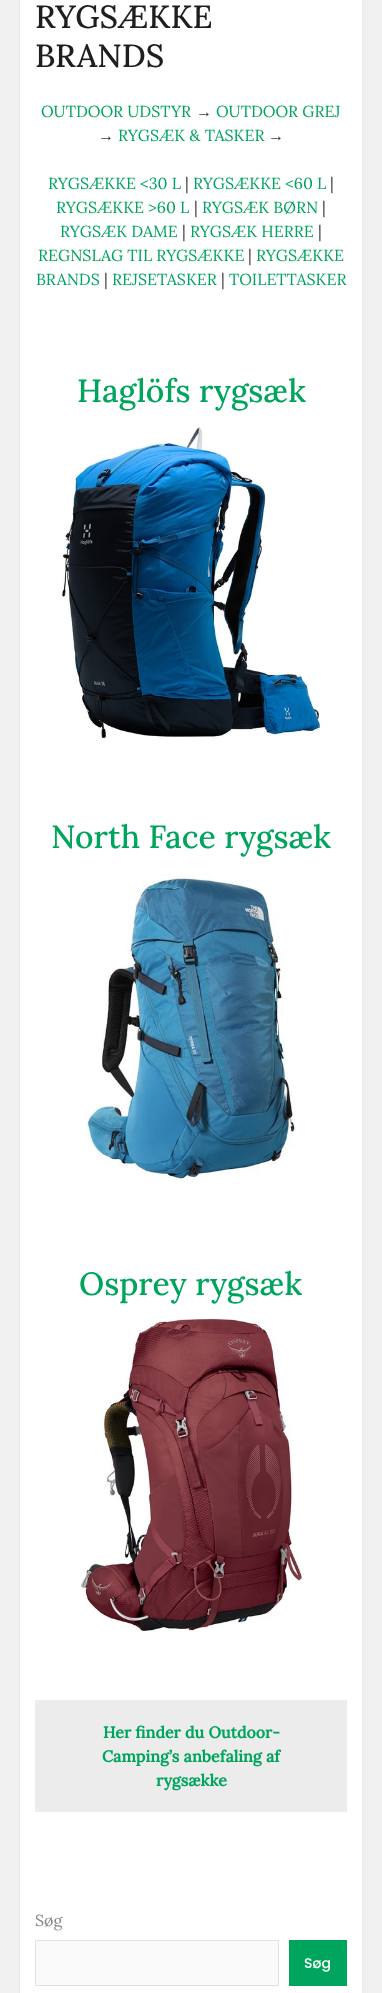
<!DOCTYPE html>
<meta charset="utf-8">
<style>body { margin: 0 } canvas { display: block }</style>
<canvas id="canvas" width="382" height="1993"></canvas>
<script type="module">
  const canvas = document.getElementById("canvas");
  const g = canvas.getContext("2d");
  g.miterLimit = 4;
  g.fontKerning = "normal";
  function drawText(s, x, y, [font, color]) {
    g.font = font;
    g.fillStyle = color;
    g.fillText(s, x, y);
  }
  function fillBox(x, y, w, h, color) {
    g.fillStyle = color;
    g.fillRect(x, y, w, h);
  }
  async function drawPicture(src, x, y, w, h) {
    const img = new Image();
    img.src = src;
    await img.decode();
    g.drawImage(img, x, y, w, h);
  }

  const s1 = ["500 32px Lora", "#1E1E1E"];
  const s2 = ["16px Lora", "#00A55D"];
  const s3 = ["16px Liberation Serif", "#323232"];
  const s4 = ["16px Lora", "#323232"];
  const s5 = ["500 32px Lora", "#00A55D"];
  const s6 = ["bold 16px Lora", "#00A55D"];
  const s7 = ["16px Lora", "#868686"];
  const s8 = ["500 14px Poppins", "#FFFFFF"];

  fillBox(0, 0, 382, 1993, "#F0F0F0");
  fillBox(20, 0, 342, 1993, "#FFFFFF");
  fillBox(362, 0, 1, 1993, "#EBEBEB");
  fillBox(19, 0, 1, 1993, "#EBEBEB");
  drawText("RYGSÆKKE", 35, 28, s1);
  drawText("BRANDS", 35, 67, s1);
  drawText("OUTDOOR UDSTYR", 41, 117, s2);
  drawText("→", 196, 117, s3);
  drawText("OUTDOOR GREJ", 216, 117, s2);
  drawText("→", 98, 141, s3);
  drawText("RYGSÆK & TASKER", 118, 141, s2);
  drawText("→", 268, 141, s3);
  drawText("RYGSÆKKE <30 L", 48, 189, s2);
  drawText("|", 185, 189, s4);
  drawText("RYGSÆKKE <60 L", 193, 189, s2);
  drawText("|", 330, 189, s4);
  drawText("RYGSÆKKE >60 L", 56, 213, s2);
  drawText("|", 194, 213, s4);
  drawText("RYGSÆK BØRN", 202, 213, s2);
  drawText("|", 322, 213, s4);
  drawText("RYGSÆK DAME", 60, 237, s2);
  drawText("|", 182, 237, s4);
  drawText("RYGSÆK HERRE", 190, 237, s2);
  drawText("|", 318, 237, s4);
  drawText("REGNSLAG TIL RYGSÆKKE", 38, 261, s2);
  drawText("|", 248, 261, s4);
  drawText("RYGSÆKKE", 256, 261, s2);
  drawText("BRANDS", 36, 285, s2);
  drawText("|", 104, 285, s4);
  drawText("REJSETASKER", 112, 285, s2);
  drawText("|", 221, 285, s4);
  drawText("TOILETTASKER", 229, 285, s2);
  drawText("Haglöfs rygsæk", 77, 402, s5);
  await drawPicture("pic1.png", 62, 427, 258, 311);
  drawText("North Face rygsæk", 51, 848, s5);
  await drawPicture("pic2.png", 85, 873, 211, 308);
  drawText("Osprey rygsæk", 79, 1295, s5);
  await drawPicture("pic3.png", 81, 1319, 221, 312);
  fillBox(35, 1700, 312, 112, "#ECECEC");
  drawText("Her finder du Outdoor-", 103, 1738, s6);
  drawText("Camping’s anbefaling af", 102, 1762, s6);
  drawText("rygsække", 156, 1786, s6);
  drawText("Søg", 35, 1926, s7);
  g.fillStyle = "#FAFAFA";
  g.beginPath();
  g.rect(35.5, 1940.5, 243, 45);
  g.fill();
  g.strokeStyle = "#E1E1E1";
  g.stroke();
  fillBox(289, 1940, 58, 46, "#00A55D");
  drawText("Søg", 304, 1968, s8);
</script>
